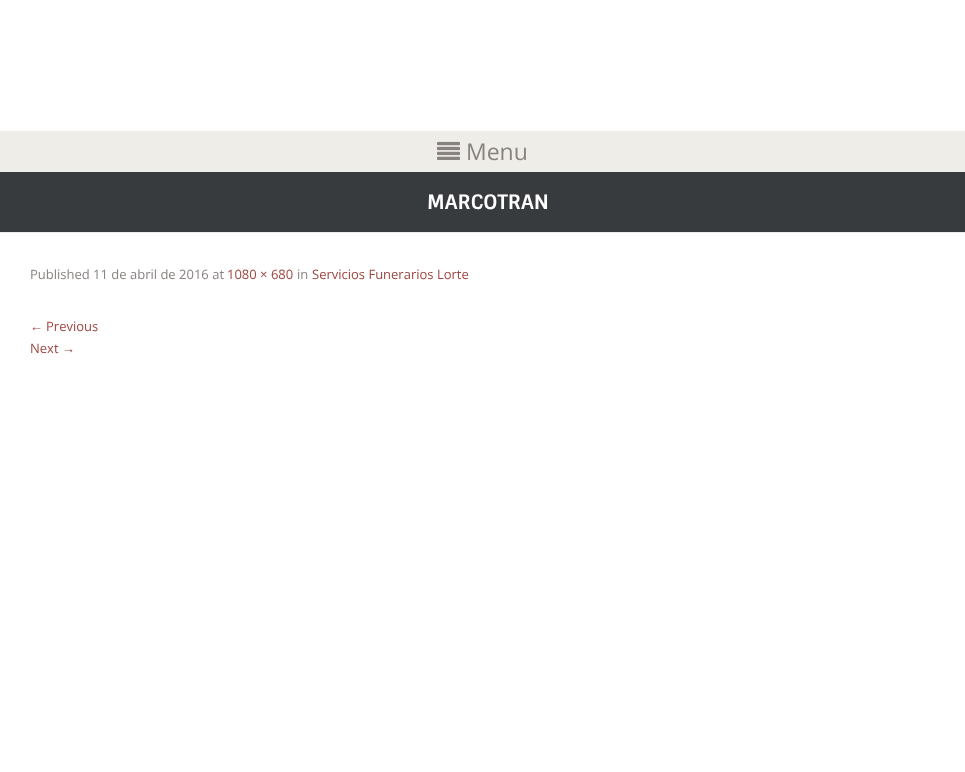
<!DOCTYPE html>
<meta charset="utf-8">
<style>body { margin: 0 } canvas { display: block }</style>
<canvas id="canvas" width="965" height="772"></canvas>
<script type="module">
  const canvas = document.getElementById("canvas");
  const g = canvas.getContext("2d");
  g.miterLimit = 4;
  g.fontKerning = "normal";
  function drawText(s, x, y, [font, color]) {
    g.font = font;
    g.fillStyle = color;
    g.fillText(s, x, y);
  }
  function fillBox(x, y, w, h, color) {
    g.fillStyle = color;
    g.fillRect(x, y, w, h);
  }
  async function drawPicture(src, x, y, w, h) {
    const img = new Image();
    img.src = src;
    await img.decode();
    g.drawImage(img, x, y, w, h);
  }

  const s1 = ["23px Open Sans", "#888381"];
  const s2 = ["bold 20px Sintony", "#FFFFFF"];
  const s3 = ["13px Open Sans", "#888381"];
  const s4 = ["13px Open Sans", "#9F4641"];
  const s5 = ["13px Liberation Serif", "#9F4641"];

  fillBox(0, 0, 965, 772, "#FFFFFF");
  fillBox(0, 131, 965, 40, "#EEEDE8");
  await drawPicture("pic1.png", 437, 141, 23, 19);
  drawText("Menu", 466, 160, s1);
  fillBox(0, 171, 965, 1, "#EAEBEB");
  fillBox(0, 232, 965, 1, "#EAEBEB");
  fillBox(0, 172, 965, 60, "#373B3E");
  drawText("MARCOTRAN", 427, 209, s2);
  drawText("Published 11 de abril de 2016 at", 30, 279, s3);
  drawText("1080 × 680", 227, 279, s4);
  drawText("in", 297, 279, s3);
  drawText("Servicios Funerarios Lorte", 312, 279, s4);
  drawText("←", 30, 331, s5);
  drawText("Previous", 46, 331, s4);
  drawText("Next", 30, 353, s4);
  drawText("→", 62, 353, s5);
</script>
